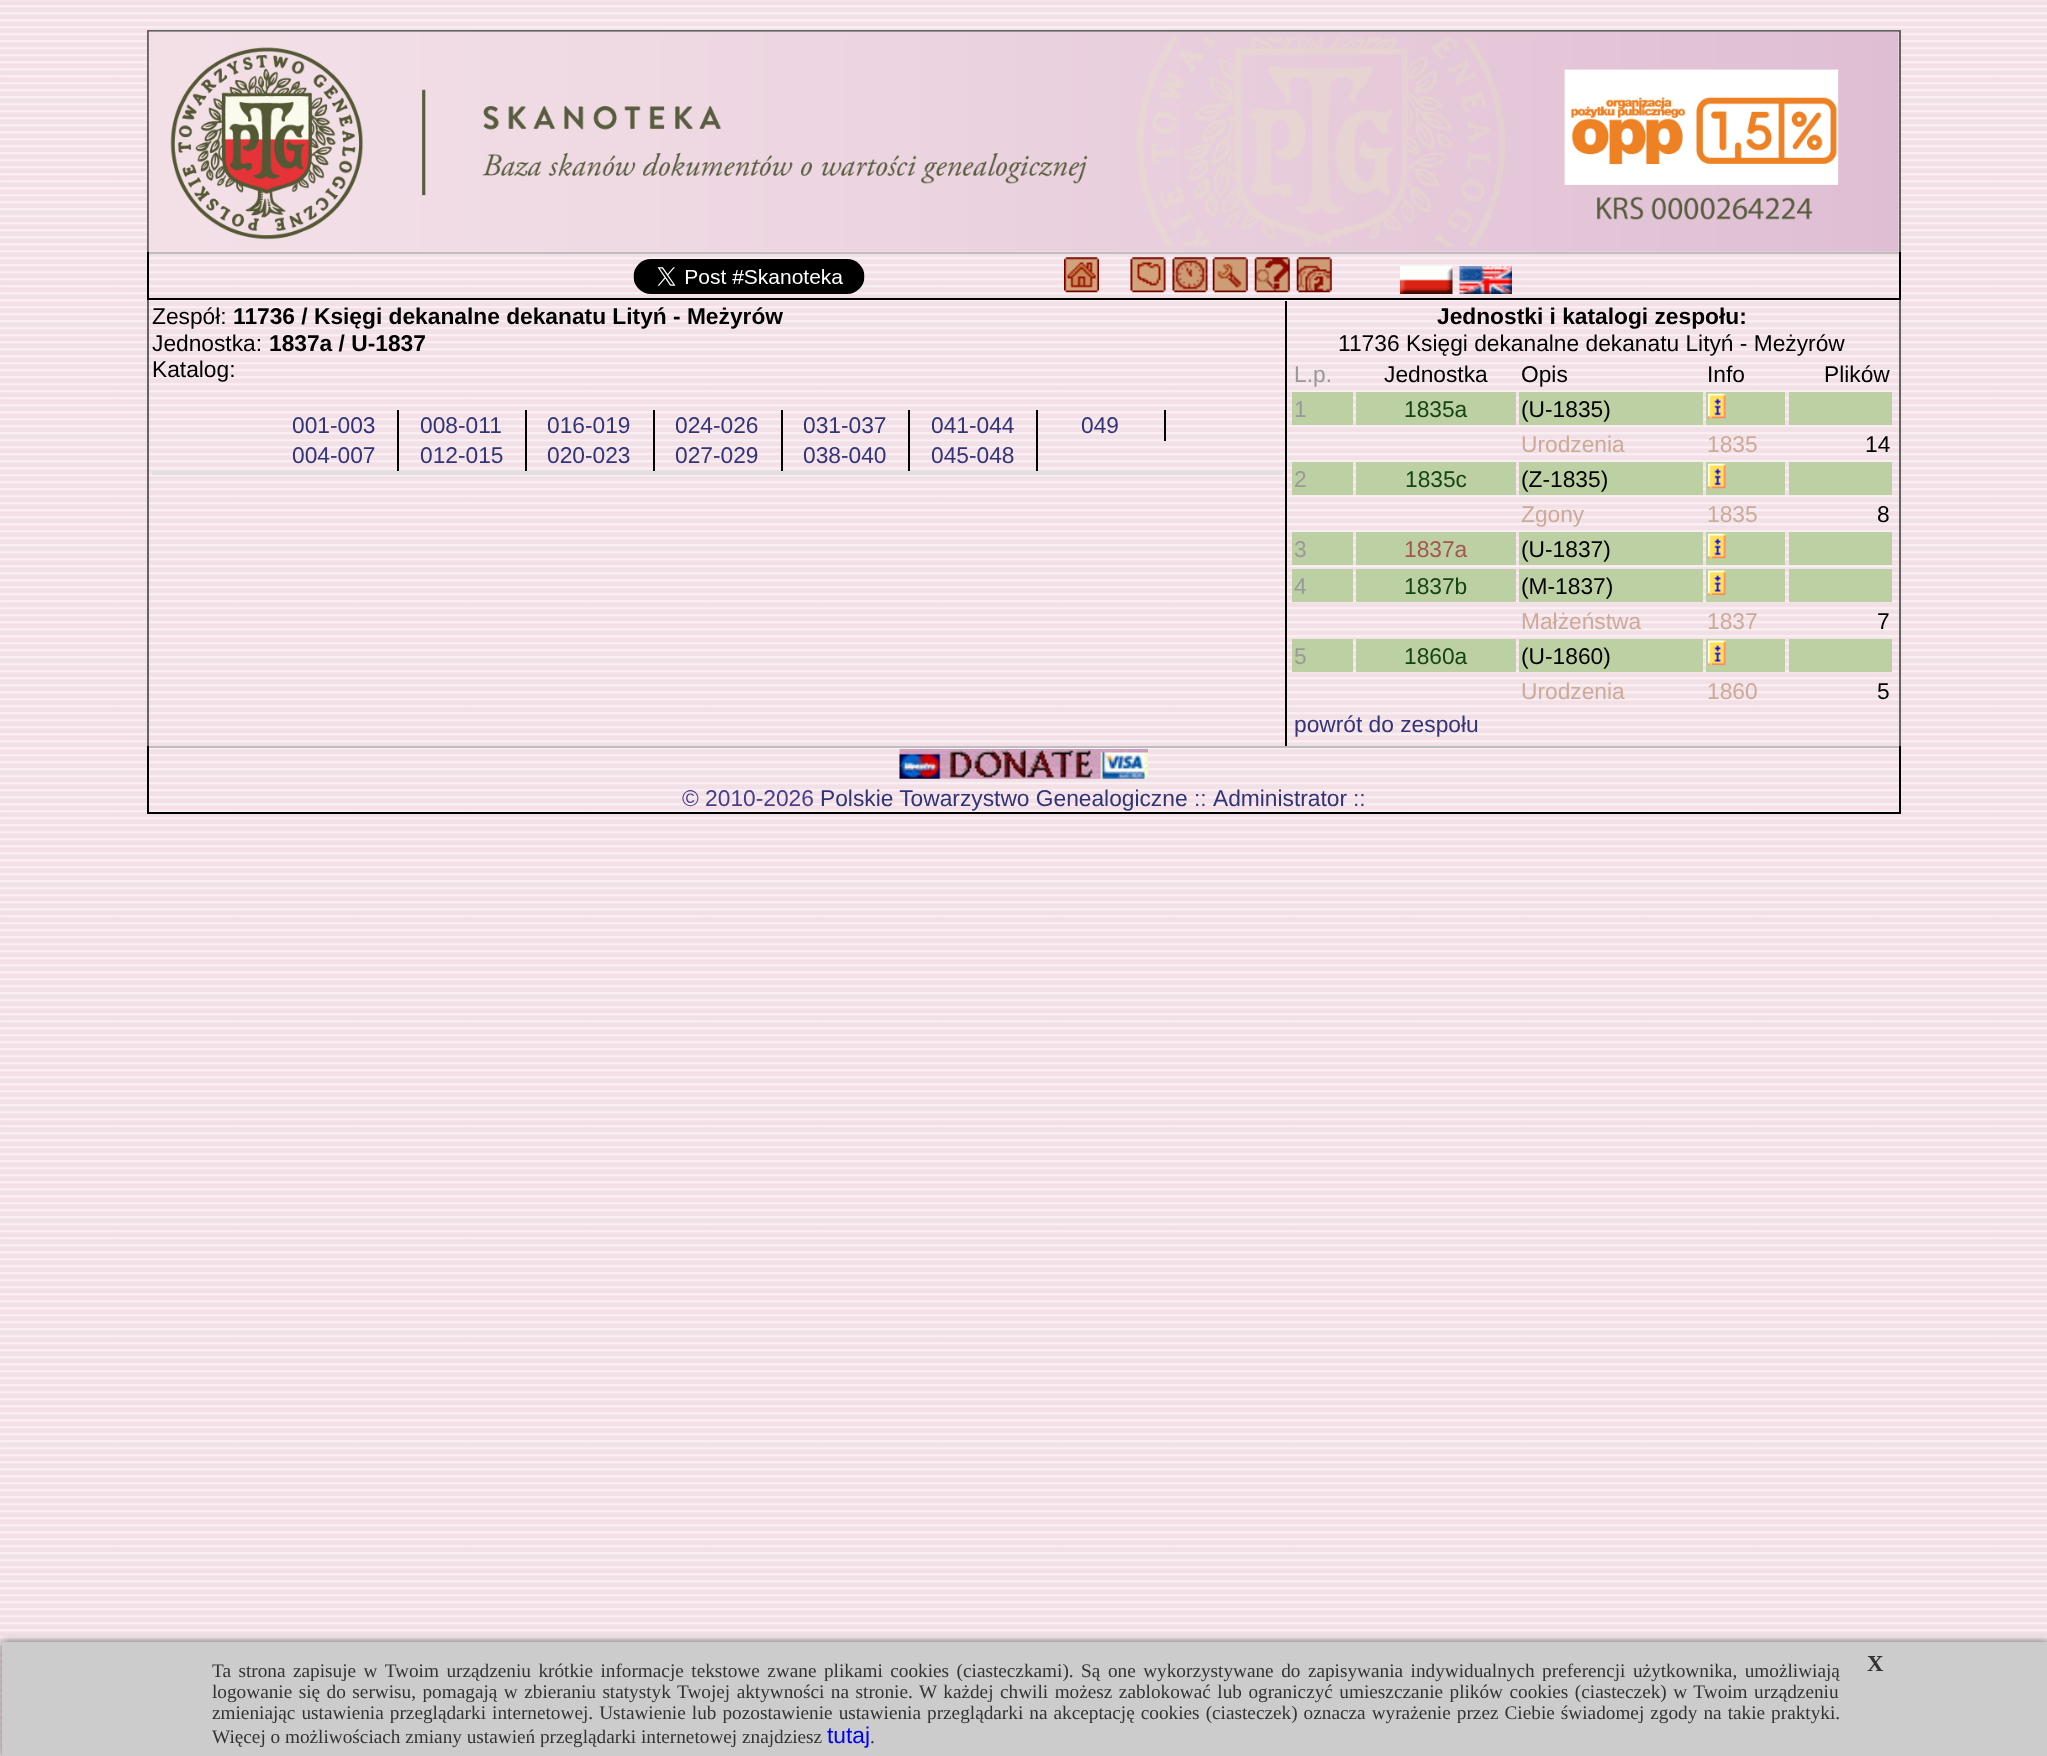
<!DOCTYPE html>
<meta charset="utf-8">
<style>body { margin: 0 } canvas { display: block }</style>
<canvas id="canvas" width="2047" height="1756"></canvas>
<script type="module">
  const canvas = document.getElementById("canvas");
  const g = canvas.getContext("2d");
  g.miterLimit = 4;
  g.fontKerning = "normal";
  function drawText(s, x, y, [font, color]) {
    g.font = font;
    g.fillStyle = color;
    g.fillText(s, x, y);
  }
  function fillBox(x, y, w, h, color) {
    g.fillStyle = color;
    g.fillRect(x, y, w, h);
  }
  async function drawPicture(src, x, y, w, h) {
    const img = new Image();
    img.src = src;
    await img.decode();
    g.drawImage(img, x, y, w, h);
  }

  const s1 = ["22.75px Liberation Sans", "#000000"];
  const s2 = ["bold 22.75px Liberation Sans", "#000000"];
  const s3 = ["22.75px Liberation Sans", "#333377"];
  const s4 = ["22.75px Liberation Sans", "#999999"];
  const s5 = ["22.75px Liberation Sans", "#144614"];
  const s6 = ["22.75px Liberation Sans", "#CCAA99"];
  const s7 = ["22.75px Liberation Sans", "#A45654"];
  const s8 = ["22.75px Liberation Sans", "#483D8B"];
  const s9 = ["19.25px Liberation Serif", "#333333"];
  const s10 = ["bold 22.75px Liberation Serif", "#333333"];
  const s11 = ["22.75px Liberation Sans", "#0000EE"];

  fillBox(0, 0, 2047, 1756, "#FFFFFF");
  await drawPicture("pic1.png", 0, 0, 2047, 1756);
  fillBox(147, 30, 1754, 2, "#646464");
  fillBox(1899, 30, 2, 716, "#646464");
  fillBox(147, 30, 2, 716, "#646464");
  await drawPicture("pic2.png", 148, 31, 1751, 221);
  fillBox(147, 252, 1754, 2, "#BEBEBE");
  fillBox(1899, 252, 2, 47, "#000000");
  fillBox(147, 298, 1754, 2, "#000000");
  fillBox(147, 252, 2, 47, "#000000");
  await drawPicture("pic3.png", 633, 259, 232, 35);
  await drawPicture("pic4.png", 1064, 257, 35, 36);
  await drawPicture("pic5.png", 1130, 257, 36, 36);
  await drawPicture("pic6.png", 1172, 257, 36, 36);
  await drawPicture("pic7.png", 1212, 257, 36, 36);
  await drawPicture("pic8.png", 1254, 257, 36, 36);
  await drawPicture("pic9.png", 1296, 257, 36, 36);
  await drawPicture("pic10.png", 1400, 266, 53, 28);
  await drawPicture("pic11.png", 1459, 266, 53, 28);
  drawText("Zespół:", 152, 324, s1);
  drawText("11736 / Księgi dekanalne dekanatu Lityń - Meżyrów", 233, 324, s2);
  drawText("Jednostka:", 152, 351, s1);
  drawText("1837a / U-1837", 269, 351, s2);
  drawText("Katalog:", 152, 377, s1);
  drawText("001-003", 292, 433, s3);
  drawText("008-011", 420, 433, s3);
  drawText("016-019", 547, 433, s3);
  drawText("024-026", 675, 433, s3);
  drawText("031-037", 803, 433, s3);
  drawText("041-044", 931, 433, s3);
  fillBox(1164, 410, 2, 31, "#000000");
  drawText("049", 1081, 433, s3);
  fillBox(397, 410, 2, 61, "#000000");
  drawText("004-007", 292, 463, s3);
  fillBox(525, 410, 2, 61, "#000000");
  drawText("012-015", 420, 463, s3);
  fillBox(653, 410, 2, 61, "#000000");
  drawText("020-023", 547, 463, s3);
  fillBox(781, 410, 2, 61, "#000000");
  drawText("027-029", 675, 463, s3);
  fillBox(908, 410, 2, 61, "#000000");
  drawText("038-040", 803, 463, s3);
  fillBox(1036, 410, 2, 61, "#000000");
  drawText("045-048", 931, 463, s3);
  fillBox(152, 471, 1131, 4, "#E0E0E0");
  fillBox(1285, 301, 2, 445, "#000000");
  drawText("Jednostki i katalogi zespołu:", 1437, 324, s2);
  drawText("11736 Księgi dekanalne dekanatu Lityń - Meżyrów", 1338, 351, s1);
  drawText("L.p.", 1294, 382, s4);
  drawText("Jednostka", 1384, 382, s1);
  drawText("Opis", 1521, 382, s1);
  drawText("Info", 1707, 382, s1);
  drawText("Plików", 1824, 382, s1);
  fillBox(1292, 392, 61, 33, "#BDD0A3");
  drawText("1", 1294, 417, s4);
  fillBox(1356, 392, 160, 33, "#BDD0A3");
  drawText("1835a", 1404, 417, s5);
  fillBox(1519, 392, 184, 33, "#BDD0A3");
  drawText("(U-1835)", 1521, 417, s1);
  fillBox(1706, 392, 79, 33, "#BDD0A3");
  await drawPicture("pic12.png", 1708, 393, 18, 26);
  fillBox(1789, 392, 103, 33, "#BDD0A3");
  drawText("Urodzenia", 1521, 452, s6);
  drawText("1835", 1707, 452, s6);
  drawText("14", 1865, 452, s1);
  fillBox(1292, 462, 61, 33, "#BDD0A3");
  drawText("2", 1294, 487, s4);
  fillBox(1356, 462, 160, 33, "#BDD0A3");
  drawText("1835c", 1405, 487, s5);
  fillBox(1519, 462, 184, 33, "#BDD0A3");
  drawText("(Z-1835)", 1521, 487, s1);
  fillBox(1706, 462, 79, 33, "#BDD0A3");
  await drawPicture("pic12.png", 1708, 463, 18, 26);
  fillBox(1789, 462, 103, 33, "#BDD0A3");
  drawText("Zgony", 1521, 522, s6);
  drawText("1835", 1707, 522, s6);
  drawText("8", 1877, 522, s1);
  fillBox(1292, 532, 61, 33, "#BDD0A3");
  drawText("3", 1294, 557, s4);
  fillBox(1356, 532, 160, 33, "#BDD0A3");
  drawText("1837a", 1404, 557, s7);
  fillBox(1519, 532, 184, 33, "#BDD0A3");
  drawText("(U-1837)", 1521, 557, s1);
  fillBox(1706, 532, 79, 33, "#BDD0A3");
  await drawPicture("pic12.png", 1708, 533, 18, 26);
  fillBox(1789, 532, 103, 33, "#BDD0A3");
  fillBox(1292, 569, 61, 33, "#BDD0A3");
  drawText("4", 1294, 594, s4);
  fillBox(1356, 569, 160, 33, "#BDD0A3");
  drawText("1837b", 1404, 594, s5);
  fillBox(1519, 569, 184, 33, "#BDD0A3");
  drawText("(M-1837)", 1521, 594, s1);
  fillBox(1706, 569, 79, 33, "#BDD0A3");
  await drawPicture("pic13.png", 1708, 570, 18, 25);
  fillBox(1789, 569, 103, 33, "#BDD0A3");
  drawText("Małżeństwa", 1521, 629, s6);
  drawText("1837", 1707, 629, s6);
  drawText("7", 1877, 629, s1);
  fillBox(1292, 639, 61, 33, "#BDD0A3");
  drawText("5", 1294, 664, s4);
  fillBox(1356, 639, 160, 33, "#BDD0A3");
  drawText("1860a", 1404, 664, s5);
  fillBox(1519, 639, 184, 33, "#BDD0A3");
  drawText("(U-1860)", 1521, 664, s1);
  fillBox(1706, 639, 79, 33, "#BDD0A3");
  await drawPicture("pic13.png", 1708, 640, 18, 25);
  fillBox(1789, 639, 103, 33, "#BDD0A3");
  drawText("Urodzenia", 1521, 699, s6);
  drawText("1860", 1707, 699, s6);
  drawText("5", 1877, 699, s1);
  drawText("powrót do zespołu", 1294, 732, s3);
  fillBox(147, 746, 1754, 2, "#BEBEBE");
  fillBox(1899, 746, 2, 68, "#000000");
  fillBox(147, 812, 1754, 2, "#000000");
  fillBox(147, 746, 2, 68, "#000000");
  await drawPicture("pic14.png", 899, 749, 249, 30);
  drawText("© 2010-2026", 682, 806, s8);
  drawText("Polskie Towarzystwo Genealogiczne", 820, 806, s3);
  drawText("::", 1194, 806, s8);
  drawText("Administrator", 1213, 806, s3);
  drawText("::", 1353, 806, s8);
  g.fillStyle = "#666666";
  g.filter = "blur(4.5px)";
  g.beginPath();
  g.rect(2, 1642, 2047, 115);
  g.fill();
  g.filter = "none";
  fillBox(2, 1642, 2045, 114, "#CCCCCC");
  g.wordSpacing = "2.7px";
  drawText("Ta strona zapisuje w Twoim urządzeniu krótkie informacje tekstowe zwane plikami cookies (ciasteczkami). Są one wykorzystywane do zapisywania indywidualnych preferencji użytkownika, umożliwiają", 212, 1677, s9);
  g.wordSpacing = "0px";
  drawText("X", 1867, 1671, s10);
  g.wordSpacing = "1.7px";
  drawText("logowanie się do serwisu, pomagają w zbieraniu statystyk Twojej aktywności na stronie. W każdej chwili możesz zablokować lub ograniczyć umieszczanie plików cookies (ciasteczek) w Twoim urządzeniu", 212, 1698, s9);
  g.wordSpacing = "1.25px";
  drawText("zmieniając ustawienia przeglądarki internetowej. Ustawienie lub pozostawienie ustawienia przeglądarki na akceptację cookies (ciasteczek) oznacza wyrażenie przez Ciebie świadomej zgody na takie praktyki.", 212, 1719, s9);
  g.wordSpacing = "0px";
  drawText("Więcej o możliwościach zmiany ustawień przeglądarki internetowej znajdziesz", 212, 1743, s9);
  drawText("tutaj", 827, 1743, s11);
  drawText(".", 870, 1743, s9);
</script>
